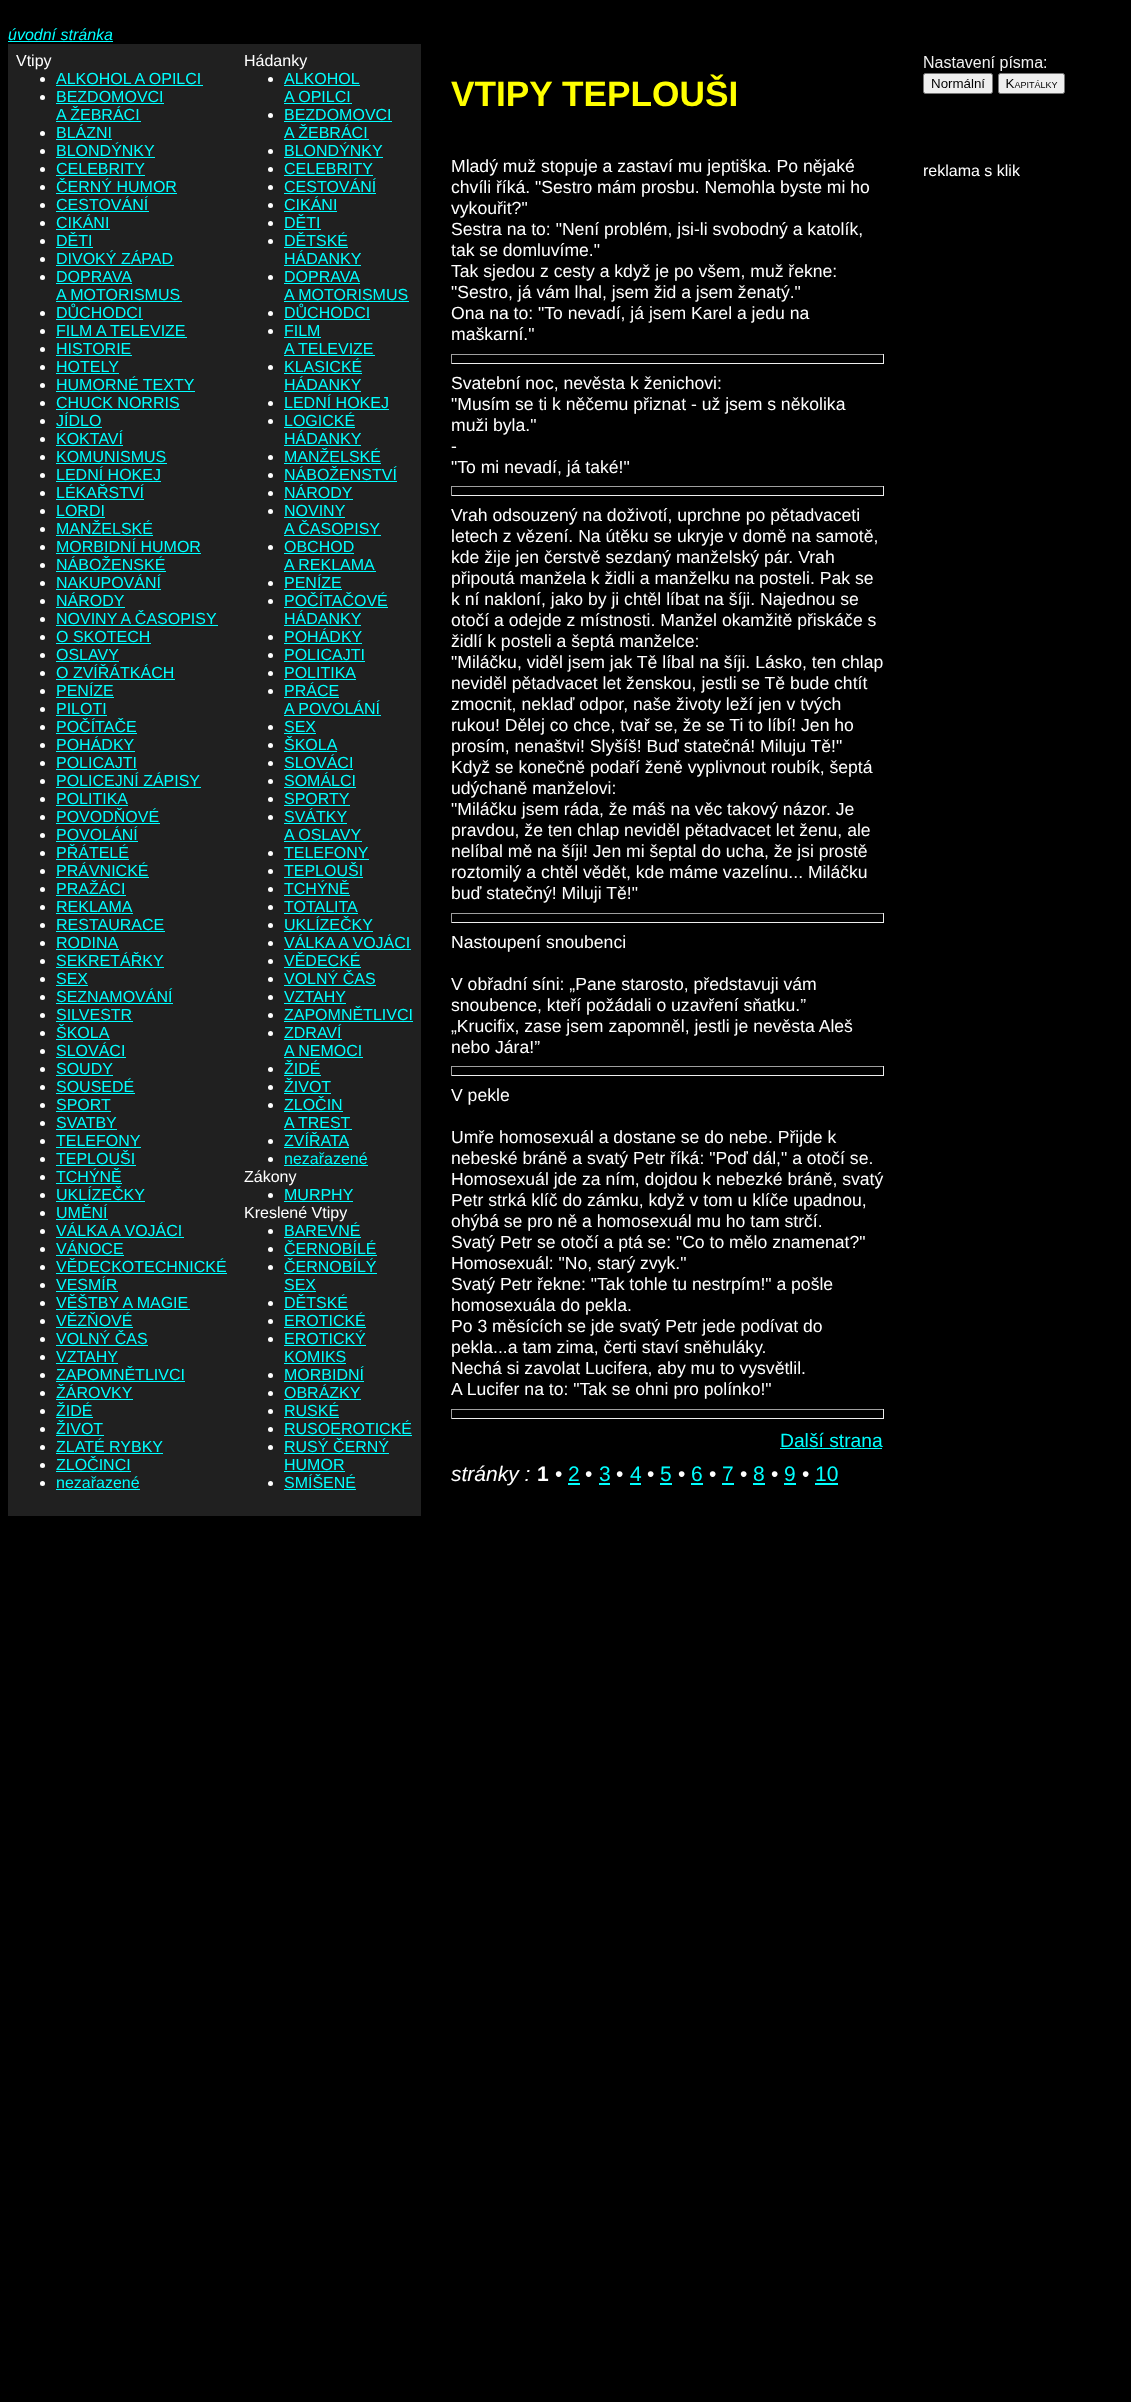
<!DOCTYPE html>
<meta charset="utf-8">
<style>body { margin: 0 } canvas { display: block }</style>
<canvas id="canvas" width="1131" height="2402"></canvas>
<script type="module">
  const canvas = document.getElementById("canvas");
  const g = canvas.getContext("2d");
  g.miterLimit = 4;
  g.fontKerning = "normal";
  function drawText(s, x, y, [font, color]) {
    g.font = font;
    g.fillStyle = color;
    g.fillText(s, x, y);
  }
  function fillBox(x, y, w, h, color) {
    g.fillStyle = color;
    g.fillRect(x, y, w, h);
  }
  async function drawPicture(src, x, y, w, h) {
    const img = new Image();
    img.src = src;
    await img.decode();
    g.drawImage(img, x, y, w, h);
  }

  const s1 = ["italic 16px Liberation Sans", "#00FFFF"];
  const s2 = ["16px Liberation Sans", "#FFFFFF"];
  const s3 = ["16px Liberation Sans", "#00FFFF"];
  const s4 = ["bold 35.25px Liberation Sans", "#FFFF00"];
  const s5 = ["17.6px Liberation Sans", "#FFFFFF"];
  const s6 = ["19.25px Liberation Sans", "#00FFFF"];
  const s7 = ["italic 21px Liberation Sans", "#FFFFFF"];
  const s8 = ["bold 21px Liberation Sans", "#FFFFFF"];
  const s9 = ["21px Liberation Sans", "#FFFFFF"];
  const s10 = ["21px Liberation Sans", "#00FFFF"];

  fillBox(0, 0, 1131, 2402, "#000000");
  drawText("úvodní stránka", 8, 40, s1);
  fillBox(8, 41, 105, 1, "#00FFFF");
  fillBox(8, 44, 413, 1472, "#202020");
  drawText("Vtipy", 16, 66, s2);
  g.beginPath();
  g.arc(42.5, 79.5, 2.5, 0, Math.PI * 2);
  g.fill();
  drawText("ALKOHOL A OPILCI", 56, 84, s3);
  fillBox(56, 85, 147, 1, "#00FFFF");
  g.fillStyle = "#FFFFFF";
  g.beginPath();
  g.arc(42.5, 97.5, 2.5, 0, Math.PI * 2);
  g.fill();
  drawText("BEZDOMOVCI", 56, 102, s3);
  fillBox(56, 103, 108, 1, "#00FFFF");
  drawText("A ŽEBRÁCI", 56, 120, s3);
  fillBox(56, 121, 85, 1, "#00FFFF");
  g.fillStyle = "#FFFFFF";
  g.beginPath();
  g.arc(42.5, 133.5, 2.5, 0, Math.PI * 2);
  g.fill();
  drawText("BLÁZNI", 56, 138, s3);
  fillBox(56, 139, 56, 1, "#00FFFF");
  g.fillStyle = "#FFFFFF";
  g.beginPath();
  g.arc(42.5, 151.5, 2.5, 0, Math.PI * 2);
  g.fill();
  drawText("BLONDÝNKY", 56, 156, s3);
  fillBox(56, 157, 99, 1, "#00FFFF");
  g.fillStyle = "#FFFFFF";
  g.beginPath();
  g.arc(42.5, 169.5, 2.5, 0, Math.PI * 2);
  g.fill();
  drawText("CELEBRITY", 56, 174, s3);
  fillBox(56, 175, 89, 1, "#00FFFF");
  g.fillStyle = "#FFFFFF";
  g.beginPath();
  g.arc(42.5, 187.5, 2.5, 0, Math.PI * 2);
  g.fill();
  drawText("ČERNÝ HUMOR", 56, 192, s3);
  fillBox(56, 193, 121, 1, "#00FFFF");
  g.fillStyle = "#FFFFFF";
  g.beginPath();
  g.arc(42.5, 205.5, 2.5, 0, Math.PI * 2);
  g.fill();
  drawText("CESTOVÁNÍ", 56, 210, s3);
  fillBox(56, 211, 93, 1, "#00FFFF");
  g.fillStyle = "#FFFFFF";
  g.beginPath();
  g.arc(42.5, 223.5, 2.5, 0, Math.PI * 2);
  g.fill();
  drawText("CIKÁNI", 56, 228, s3);
  fillBox(56, 229, 54, 1, "#00FFFF");
  g.fillStyle = "#FFFFFF";
  g.beginPath();
  g.arc(42.5, 241.5, 2.5, 0, Math.PI * 2);
  g.fill();
  drawText("DĚTI", 56, 246, s3);
  fillBox(56, 247, 37, 1, "#00FFFF");
  g.fillStyle = "#FFFFFF";
  g.beginPath();
  g.arc(42.5, 259.5, 2.5, 0, Math.PI * 2);
  g.fill();
  drawText("DIVOKÝ ZÁPAD", 56, 264, s3);
  fillBox(56, 265, 118, 1, "#00FFFF");
  g.fillStyle = "#FFFFFF";
  g.beginPath();
  g.arc(42.5, 277.5, 2.5, 0, Math.PI * 2);
  g.fill();
  drawText("DOPRAVA", 56, 282, s3);
  fillBox(56, 283, 76, 1, "#00FFFF");
  drawText("A MOTORISMUS", 56, 300, s3);
  fillBox(56, 301, 126, 1, "#00FFFF");
  g.fillStyle = "#FFFFFF";
  g.beginPath();
  g.arc(42.5, 313.5, 2.5, 0, Math.PI * 2);
  g.fill();
  drawText("DŮCHODCI", 56, 318, s3);
  fillBox(56, 319, 87, 1, "#00FFFF");
  g.fillStyle = "#FFFFFF";
  g.beginPath();
  g.arc(42.5, 331.5, 2.5, 0, Math.PI * 2);
  g.fill();
  drawText("FILM A TELEVIZE", 56, 336, s3);
  fillBox(56, 337, 131, 1, "#00FFFF");
  g.fillStyle = "#FFFFFF";
  g.beginPath();
  g.arc(42.5, 349.5, 2.5, 0, Math.PI * 2);
  g.fill();
  drawText("HISTORIE", 56, 354, s3);
  fillBox(56, 355, 76, 1, "#00FFFF");
  g.fillStyle = "#FFFFFF";
  g.beginPath();
  g.arc(42.5, 367.5, 2.5, 0, Math.PI * 2);
  g.fill();
  drawText("HOTELY", 56, 372, s3);
  fillBox(56, 373, 63, 1, "#00FFFF");
  g.fillStyle = "#FFFFFF";
  g.beginPath();
  g.arc(42.5, 385.5, 2.5, 0, Math.PI * 2);
  g.fill();
  drawText("HUMORNÉ TEXTY", 56, 390, s3);
  fillBox(56, 391, 139, 1, "#00FFFF");
  g.fillStyle = "#FFFFFF";
  g.beginPath();
  g.arc(42.5, 403.5, 2.5, 0, Math.PI * 2);
  g.fill();
  drawText("CHUCK NORRIS", 56, 408, s3);
  fillBox(56, 409, 124, 1, "#00FFFF");
  g.fillStyle = "#FFFFFF";
  g.beginPath();
  g.arc(42.5, 421.5, 2.5, 0, Math.PI * 2);
  g.fill();
  drawText("JÍDLO", 56, 426, s3);
  fillBox(56, 427, 46, 1, "#00FFFF");
  g.fillStyle = "#FFFFFF";
  g.beginPath();
  g.arc(42.5, 439.5, 2.5, 0, Math.PI * 2);
  g.fill();
  drawText("KOKTAVÍ", 56, 444, s3);
  fillBox(56, 445, 67, 1, "#00FFFF");
  g.fillStyle = "#FFFFFF";
  g.beginPath();
  g.arc(42.5, 457.5, 2.5, 0, Math.PI * 2);
  g.fill();
  drawText("KOMUNISMUS", 56, 462, s3);
  fillBox(56, 463, 111, 1, "#00FFFF");
  g.fillStyle = "#FFFFFF";
  g.beginPath();
  g.arc(42.5, 475.5, 2.5, 0, Math.PI * 2);
  g.fill();
  drawText("LEDNÍ HOKEJ", 56, 480, s3);
  fillBox(56, 481, 105, 1, "#00FFFF");
  g.fillStyle = "#FFFFFF";
  g.beginPath();
  g.arc(42.5, 493.5, 2.5, 0, Math.PI * 2);
  g.fill();
  drawText("LÉKAŘSTVÍ", 56, 498, s3);
  fillBox(56, 499, 88, 1, "#00FFFF");
  g.fillStyle = "#FFFFFF";
  g.beginPath();
  g.arc(42.5, 511.5, 2.5, 0, Math.PI * 2);
  g.fill();
  drawText("LORDI", 56, 516, s3);
  fillBox(56, 517, 49, 1, "#00FFFF");
  g.fillStyle = "#FFFFFF";
  g.beginPath();
  g.arc(42.5, 529.5, 2.5, 0, Math.PI * 2);
  g.fill();
  drawText("MANŽELSKÉ", 56, 534, s3);
  fillBox(56, 535, 97, 1, "#00FFFF");
  g.fillStyle = "#FFFFFF";
  g.beginPath();
  g.arc(42.5, 547.5, 2.5, 0, Math.PI * 2);
  g.fill();
  drawText("MORBIDNÍ HUMOR", 56, 552, s3);
  fillBox(56, 553, 145, 1, "#00FFFF");
  g.fillStyle = "#FFFFFF";
  g.beginPath();
  g.arc(42.5, 565.5, 2.5, 0, Math.PI * 2);
  g.fill();
  drawText("NÁBOŽENSKÉ", 56, 570, s3);
  fillBox(56, 571, 110, 1, "#00FFFF");
  g.fillStyle = "#FFFFFF";
  g.beginPath();
  g.arc(42.5, 583.5, 2.5, 0, Math.PI * 2);
  g.fill();
  drawText("NAKUPOVÁNÍ", 56, 588, s3);
  fillBox(56, 589, 105, 1, "#00FFFF");
  g.fillStyle = "#FFFFFF";
  g.beginPath();
  g.arc(42.5, 601.5, 2.5, 0, Math.PI * 2);
  g.fill();
  drawText("NÁRODY", 56, 606, s3);
  fillBox(56, 607, 69, 1, "#00FFFF");
  g.fillStyle = "#FFFFFF";
  g.beginPath();
  g.arc(42.5, 619.5, 2.5, 0, Math.PI * 2);
  g.fill();
  drawText("NOVINY A ČASOPISY", 56, 624, s3);
  fillBox(56, 625, 162, 1, "#00FFFF");
  g.fillStyle = "#FFFFFF";
  g.beginPath();
  g.arc(42.5, 637.5, 2.5, 0, Math.PI * 2);
  g.fill();
  drawText("O SKOTECH", 56, 642, s3);
  fillBox(56, 643, 95, 1, "#00FFFF");
  g.fillStyle = "#FFFFFF";
  g.beginPath();
  g.arc(42.5, 655.5, 2.5, 0, Math.PI * 2);
  g.fill();
  drawText("OSLAVY", 56, 660, s3);
  fillBox(56, 661, 63, 1, "#00FFFF");
  g.fillStyle = "#FFFFFF";
  g.beginPath();
  g.arc(42.5, 673.5, 2.5, 0, Math.PI * 2);
  g.fill();
  drawText("O ZVÍŘÁTKÁCH", 56, 678, s3);
  fillBox(56, 679, 119, 1, "#00FFFF");
  g.fillStyle = "#FFFFFF";
  g.beginPath();
  g.arc(42.5, 691.5, 2.5, 0, Math.PI * 2);
  g.fill();
  drawText("PENÍZE", 56, 696, s3);
  fillBox(56, 697, 58, 1, "#00FFFF");
  g.fillStyle = "#FFFFFF";
  g.beginPath();
  g.arc(42.5, 709.5, 2.5, 0, Math.PI * 2);
  g.fill();
  drawText("PILOTI", 56, 714, s3);
  fillBox(56, 715, 51, 1, "#00FFFF");
  g.fillStyle = "#FFFFFF";
  g.beginPath();
  g.arc(42.5, 727.5, 2.5, 0, Math.PI * 2);
  g.fill();
  drawText("POČÍTAČE", 56, 732, s3);
  fillBox(56, 733, 81, 1, "#00FFFF");
  g.fillStyle = "#FFFFFF";
  g.beginPath();
  g.arc(42.5, 745.5, 2.5, 0, Math.PI * 2);
  g.fill();
  drawText("POHÁDKY", 56, 750, s3);
  fillBox(56, 751, 79, 1, "#00FFFF");
  g.fillStyle = "#FFFFFF";
  g.beginPath();
  g.arc(42.5, 763.5, 2.5, 0, Math.PI * 2);
  g.fill();
  drawText("POLICAJTI", 56, 768, s3);
  fillBox(56, 769, 81, 1, "#00FFFF");
  g.fillStyle = "#FFFFFF";
  g.beginPath();
  g.arc(42.5, 781.5, 2.5, 0, Math.PI * 2);
  g.fill();
  drawText("POLICEJNÍ ZÁPISY", 56, 786, s3);
  fillBox(56, 787, 145, 1, "#00FFFF");
  g.fillStyle = "#FFFFFF";
  g.beginPath();
  g.arc(42.5, 799.5, 2.5, 0, Math.PI * 2);
  g.fill();
  drawText("POLITIKA", 56, 804, s3);
  fillBox(56, 805, 72, 1, "#00FFFF");
  g.fillStyle = "#FFFFFF";
  g.beginPath();
  g.arc(42.5, 817.5, 2.5, 0, Math.PI * 2);
  g.fill();
  drawText("POVODŇOVÉ", 56, 822, s3);
  fillBox(56, 823, 104, 1, "#00FFFF");
  g.fillStyle = "#FFFFFF";
  g.beginPath();
  g.arc(42.5, 835.5, 2.5, 0, Math.PI * 2);
  g.fill();
  drawText("POVOLÁNÍ", 56, 840, s3);
  fillBox(56, 841, 82, 1, "#00FFFF");
  g.fillStyle = "#FFFFFF";
  g.beginPath();
  g.arc(42.5, 853.5, 2.5, 0, Math.PI * 2);
  g.fill();
  drawText("PŘÁTELÉ", 56, 858, s3);
  fillBox(56, 859, 73, 1, "#00FFFF");
  g.fillStyle = "#FFFFFF";
  g.beginPath();
  g.arc(42.5, 871.5, 2.5, 0, Math.PI * 2);
  g.fill();
  drawText("PRÁVNICKÉ", 56, 876, s3);
  fillBox(56, 877, 93, 1, "#00FFFF");
  g.fillStyle = "#FFFFFF";
  g.beginPath();
  g.arc(42.5, 889.5, 2.5, 0, Math.PI * 2);
  g.fill();
  drawText("PRAŽÁCI", 56, 894, s3);
  fillBox(56, 895, 70, 1, "#00FFFF");
  g.fillStyle = "#FFFFFF";
  g.beginPath();
  g.arc(42.5, 907.5, 2.5, 0, Math.PI * 2);
  g.fill();
  drawText("REKLAMA", 56, 912, s3);
  fillBox(56, 913, 77, 1, "#00FFFF");
  g.fillStyle = "#FFFFFF";
  g.beginPath();
  g.arc(42.5, 925.5, 2.5, 0, Math.PI * 2);
  g.fill();
  drawText("RESTAURACE", 56, 930, s3);
  fillBox(56, 931, 109, 1, "#00FFFF");
  g.fillStyle = "#FFFFFF";
  g.beginPath();
  g.arc(42.5, 943.5, 2.5, 0, Math.PI * 2);
  g.fill();
  drawText("RODINA", 56, 948, s3);
  fillBox(56, 949, 63, 1, "#00FFFF");
  g.fillStyle = "#FFFFFF";
  g.beginPath();
  g.arc(42.5, 961.5, 2.5, 0, Math.PI * 2);
  g.fill();
  drawText("SEKRETÁŘKY", 56, 966, s3);
  fillBox(56, 967, 108, 1, "#00FFFF");
  g.fillStyle = "#FFFFFF";
  g.beginPath();
  g.arc(42.5, 979.5, 2.5, 0, Math.PI * 2);
  g.fill();
  drawText("SEX", 56, 984, s3);
  fillBox(56, 985, 32, 1, "#00FFFF");
  g.fillStyle = "#FFFFFF";
  g.beginPath();
  g.arc(42.5, 997.5, 2.5, 0, Math.PI * 2);
  g.fill();
  drawText("SEZNAMOVÁNÍ", 56, 1002, s3);
  fillBox(56, 1003, 117, 1, "#00FFFF");
  g.fillStyle = "#FFFFFF";
  g.beginPath();
  g.arc(42.5, 1015.5, 2.5, 0, Math.PI * 2);
  g.fill();
  drawText("SILVESTR", 56, 1020, s3);
  fillBox(56, 1021, 77, 1, "#00FFFF");
  g.fillStyle = "#FFFFFF";
  g.beginPath();
  g.arc(42.5, 1033.5, 2.5, 0, Math.PI * 2);
  g.fill();
  drawText("ŠKOLA", 56, 1038, s3);
  fillBox(56, 1039, 54, 1, "#00FFFF");
  g.fillStyle = "#FFFFFF";
  g.beginPath();
  g.arc(42.5, 1051.5, 2.5, 0, Math.PI * 2);
  g.fill();
  drawText("SLOVÁCI", 56, 1056, s3);
  fillBox(56, 1057, 70, 1, "#00FFFF");
  g.fillStyle = "#FFFFFF";
  g.beginPath();
  g.arc(42.5, 1069.5, 2.5, 0, Math.PI * 2);
  g.fill();
  drawText("SOUDY", 56, 1074, s3);
  fillBox(56, 1075, 57, 1, "#00FFFF");
  g.fillStyle = "#FFFFFF";
  g.beginPath();
  g.arc(42.5, 1087.5, 2.5, 0, Math.PI * 2);
  g.fill();
  drawText("SOUSEDÉ", 56, 1092, s3);
  fillBox(56, 1093, 79, 1, "#00FFFF");
  g.fillStyle = "#FFFFFF";
  g.beginPath();
  g.arc(42.5, 1105.5, 2.5, 0, Math.PI * 2);
  g.fill();
  drawText("SPORT", 56, 1110, s3);
  fillBox(56, 1111, 55, 1, "#00FFFF");
  g.fillStyle = "#FFFFFF";
  g.beginPath();
  g.arc(42.5, 1123.5, 2.5, 0, Math.PI * 2);
  g.fill();
  drawText("SVATBY", 56, 1128, s3);
  fillBox(56, 1129, 61, 1, "#00FFFF");
  g.fillStyle = "#FFFFFF";
  g.beginPath();
  g.arc(42.5, 1141.5, 2.5, 0, Math.PI * 2);
  g.fill();
  drawText("TELEFONY", 56, 1146, s3);
  fillBox(56, 1147, 85, 1, "#00FFFF");
  g.fillStyle = "#FFFFFF";
  g.beginPath();
  g.arc(42.5, 1159.5, 2.5, 0, Math.PI * 2);
  g.fill();
  drawText("TEPLOUŠI", 56, 1164, s3);
  fillBox(56, 1165, 80, 1, "#00FFFF");
  g.fillStyle = "#FFFFFF";
  g.beginPath();
  g.arc(42.5, 1177.5, 2.5, 0, Math.PI * 2);
  g.fill();
  drawText("TCHÝNĚ", 56, 1182, s3);
  fillBox(56, 1183, 66, 1, "#00FFFF");
  g.fillStyle = "#FFFFFF";
  g.beginPath();
  g.arc(42.5, 1195.5, 2.5, 0, Math.PI * 2);
  g.fill();
  drawText("UKLÍZEČKY", 56, 1200, s3);
  fillBox(56, 1201, 89, 1, "#00FFFF");
  g.fillStyle = "#FFFFFF";
  g.beginPath();
  g.arc(42.5, 1213.5, 2.5, 0, Math.PI * 2);
  g.fill();
  drawText("UMĚNÍ", 56, 1218, s3);
  fillBox(56, 1219, 52, 1, "#00FFFF");
  g.fillStyle = "#FFFFFF";
  g.beginPath();
  g.arc(42.5, 1231.5, 2.5, 0, Math.PI * 2);
  g.fill();
  drawText("VÁLKA A VOJÁCI", 56, 1236, s3);
  fillBox(56, 1237, 128, 1, "#00FFFF");
  g.fillStyle = "#FFFFFF";
  g.beginPath();
  g.arc(42.5, 1249.5, 2.5, 0, Math.PI * 2);
  g.fill();
  drawText("VÁNOCE", 56, 1254, s3);
  fillBox(56, 1255, 68, 1, "#00FFFF");
  g.fillStyle = "#FFFFFF";
  g.beginPath();
  g.arc(42.5, 1267.5, 2.5, 0, Math.PI * 2);
  g.fill();
  drawText("VĚDECKOTECHNICKÉ", 56, 1272, s3);
  fillBox(56, 1273, 171, 1, "#00FFFF");
  g.fillStyle = "#FFFFFF";
  g.beginPath();
  g.arc(42.5, 1285.5, 2.5, 0, Math.PI * 2);
  g.fill();
  drawText("VESMÍR", 56, 1290, s3);
  fillBox(56, 1291, 62, 1, "#00FFFF");
  g.fillStyle = "#FFFFFF";
  g.beginPath();
  g.arc(42.5, 1303.5, 2.5, 0, Math.PI * 2);
  g.fill();
  drawText("VĚŠTBY A MAGIE", 56, 1308, s3);
  fillBox(56, 1309, 134, 1, "#00FFFF");
  g.fillStyle = "#FFFFFF";
  g.beginPath();
  g.arc(42.5, 1321.5, 2.5, 0, Math.PI * 2);
  g.fill();
  drawText("VĚZŇOVÉ", 56, 1326, s3);
  fillBox(56, 1327, 77, 1, "#00FFFF");
  g.fillStyle = "#FFFFFF";
  g.beginPath();
  g.arc(42.5, 1339.5, 2.5, 0, Math.PI * 2);
  g.fill();
  drawText("VOLNÝ ČAS", 56, 1344, s3);
  fillBox(56, 1345, 92, 1, "#00FFFF");
  g.fillStyle = "#FFFFFF";
  g.beginPath();
  g.arc(42.5, 1357.5, 2.5, 0, Math.PI * 2);
  g.fill();
  drawText("VZTAHY", 56, 1362, s3);
  fillBox(56, 1363, 62, 1, "#00FFFF");
  g.fillStyle = "#FFFFFF";
  g.beginPath();
  g.arc(42.5, 1375.5, 2.5, 0, Math.PI * 2);
  g.fill();
  drawText("ZAPOMNĚTLIVCI", 56, 1380, s3);
  fillBox(56, 1381, 129, 1, "#00FFFF");
  g.fillStyle = "#FFFFFF";
  g.beginPath();
  g.arc(42.5, 1393.5, 2.5, 0, Math.PI * 2);
  g.fill();
  drawText("ŽÁROVKY", 56, 1398, s3);
  fillBox(56, 1399, 77, 1, "#00FFFF");
  g.fillStyle = "#FFFFFF";
  g.beginPath();
  g.arc(42.5, 1411.5, 2.5, 0, Math.PI * 2);
  g.fill();
  drawText("ŽIDÉ", 56, 1416, s3);
  fillBox(56, 1417, 37, 1, "#00FFFF");
  g.fillStyle = "#FFFFFF";
  g.beginPath();
  g.arc(42.5, 1429.5, 2.5, 0, Math.PI * 2);
  g.fill();
  drawText("ŽIVOT", 56, 1434, s3);
  fillBox(56, 1435, 48, 1, "#00FFFF");
  g.fillStyle = "#FFFFFF";
  g.beginPath();
  g.arc(42.5, 1447.5, 2.5, 0, Math.PI * 2);
  g.fill();
  drawText("ZLATÉ RYBKY", 56, 1452, s3);
  fillBox(56, 1453, 107, 1, "#00FFFF");
  g.fillStyle = "#FFFFFF";
  g.beginPath();
  g.arc(42.5, 1465.5, 2.5, 0, Math.PI * 2);
  g.fill();
  drawText("ZLOČINCI", 56, 1470, s3);
  fillBox(56, 1471, 75, 1, "#00FFFF");
  g.fillStyle = "#FFFFFF";
  g.beginPath();
  g.arc(42.5, 1483.5, 2.5, 0, Math.PI * 2);
  g.fill();
  drawText("nezařazené", 56, 1488, s3);
  fillBox(56, 1489, 84, 1, "#00FFFF");
  drawText("Hádanky", 244, 66, s2);
  g.beginPath();
  g.arc(270.5, 79.5, 2.5, 0, Math.PI * 2);
  g.fill();
  drawText("ALKOHOL", 284, 84, s3);
  fillBox(284, 85, 76, 1, "#00FFFF");
  drawText("A OPILCI", 284, 102, s3);
  fillBox(284, 103, 68, 1, "#00FFFF");
  g.fillStyle = "#FFFFFF";
  g.beginPath();
  g.arc(270.5, 115.5, 2.5, 0, Math.PI * 2);
  g.fill();
  drawText("BEZDOMOVCI", 284, 120, s3);
  fillBox(284, 121, 108, 1, "#00FFFF");
  drawText("A ŽEBRÁCI", 284, 138, s3);
  fillBox(284, 139, 85, 1, "#00FFFF");
  g.fillStyle = "#FFFFFF";
  g.beginPath();
  g.arc(270.5, 151.5, 2.5, 0, Math.PI * 2);
  g.fill();
  drawText("BLONDÝNKY", 284, 156, s3);
  fillBox(284, 157, 99, 1, "#00FFFF");
  g.fillStyle = "#FFFFFF";
  g.beginPath();
  g.arc(270.5, 169.5, 2.5, 0, Math.PI * 2);
  g.fill();
  drawText("CELEBRITY", 284, 174, s3);
  fillBox(284, 175, 89, 1, "#00FFFF");
  g.fillStyle = "#FFFFFF";
  g.beginPath();
  g.arc(270.5, 187.5, 2.5, 0, Math.PI * 2);
  g.fill();
  drawText("CESTOVÁNÍ", 284, 192, s3);
  fillBox(284, 193, 92, 1, "#00FFFF");
  g.fillStyle = "#FFFFFF";
  g.beginPath();
  g.arc(270.5, 205.5, 2.5, 0, Math.PI * 2);
  g.fill();
  drawText("CIKÁNI", 284, 210, s3);
  fillBox(284, 211, 53, 1, "#00FFFF");
  g.fillStyle = "#FFFFFF";
  g.beginPath();
  g.arc(270.5, 223.5, 2.5, 0, Math.PI * 2);
  g.fill();
  drawText("DĚTI", 284, 228, s3);
  fillBox(284, 229, 37, 1, "#00FFFF");
  g.fillStyle = "#FFFFFF";
  g.beginPath();
  g.arc(270.5, 241.5, 2.5, 0, Math.PI * 2);
  g.fill();
  drawText("DĚTSKÉ", 284, 246, s3);
  fillBox(284, 247, 64, 1, "#00FFFF");
  drawText("HÁDANKY", 284, 264, s3);
  fillBox(284, 265, 77, 1, "#00FFFF");
  g.fillStyle = "#FFFFFF";
  g.beginPath();
  g.arc(270.5, 277.5, 2.5, 0, Math.PI * 2);
  g.fill();
  drawText("DOPRAVA", 284, 282, s3);
  fillBox(284, 283, 76, 1, "#00FFFF");
  drawText("A MOTORISMUS", 284, 300, s3);
  fillBox(284, 301, 125, 1, "#00FFFF");
  g.fillStyle = "#FFFFFF";
  g.beginPath();
  g.arc(270.5, 313.5, 2.5, 0, Math.PI * 2);
  g.fill();
  drawText("DŮCHODCI", 284, 318, s3);
  fillBox(284, 319, 86, 1, "#00FFFF");
  g.fillStyle = "#FFFFFF";
  g.beginPath();
  g.arc(270.5, 331.5, 2.5, 0, Math.PI * 2);
  g.fill();
  drawText("FILM", 284, 336, s3);
  fillBox(284, 337, 37, 1, "#00FFFF");
  drawText("A TELEVIZE", 284, 354, s3);
  fillBox(284, 355, 91, 1, "#00FFFF");
  g.fillStyle = "#FFFFFF";
  g.beginPath();
  g.arc(270.5, 367.5, 2.5, 0, Math.PI * 2);
  g.fill();
  drawText("KLASICKÉ", 284, 372, s3);
  fillBox(284, 373, 78, 1, "#00FFFF");
  drawText("HÁDANKY", 284, 390, s3);
  fillBox(284, 391, 77, 1, "#00FFFF");
  g.fillStyle = "#FFFFFF";
  g.beginPath();
  g.arc(270.5, 403.5, 2.5, 0, Math.PI * 2);
  g.fill();
  drawText("LEDNÍ HOKEJ", 284, 408, s3);
  fillBox(284, 409, 105, 1, "#00FFFF");
  g.fillStyle = "#FFFFFF";
  g.beginPath();
  g.arc(270.5, 421.5, 2.5, 0, Math.PI * 2);
  g.fill();
  drawText("LOGICKÉ", 284, 426, s3);
  fillBox(284, 427, 71, 1, "#00FFFF");
  drawText("HÁDANKY", 284, 444, s3);
  fillBox(284, 445, 77, 1, "#00FFFF");
  g.fillStyle = "#FFFFFF";
  g.beginPath();
  g.arc(270.5, 457.5, 2.5, 0, Math.PI * 2);
  g.fill();
  drawText("MANŽELSKÉ", 284, 462, s3);
  fillBox(284, 463, 97, 1, "#00FFFF");
  g.fillStyle = "#FFFFFF";
  g.beginPath();
  g.arc(270.5, 475.5, 2.5, 0, Math.PI * 2);
  g.fill();
  drawText("NÁBOŽENSTVÍ", 284, 480, s3);
  fillBox(284, 481, 113, 1, "#00FFFF");
  g.fillStyle = "#FFFFFF";
  g.beginPath();
  g.arc(270.5, 493.5, 2.5, 0, Math.PI * 2);
  g.fill();
  drawText("NÁRODY", 284, 498, s3);
  fillBox(284, 499, 69, 1, "#00FFFF");
  g.fillStyle = "#FFFFFF";
  g.beginPath();
  g.arc(270.5, 511.5, 2.5, 0, Math.PI * 2);
  g.fill();
  drawText("NOVINY", 284, 516, s3);
  fillBox(284, 517, 61, 1, "#00FFFF");
  drawText("A ČASOPISY", 284, 534, s3);
  fillBox(284, 535, 97, 1, "#00FFFF");
  g.fillStyle = "#FFFFFF";
  g.beginPath();
  g.arc(270.5, 547.5, 2.5, 0, Math.PI * 2);
  g.fill();
  drawText("OBCHOD", 284, 552, s3);
  fillBox(284, 553, 70, 1, "#00FFFF");
  drawText("A REKLAMA", 284, 570, s3);
  fillBox(284, 571, 92, 1, "#00FFFF");
  g.fillStyle = "#FFFFFF";
  g.beginPath();
  g.arc(270.5, 583.5, 2.5, 0, Math.PI * 2);
  g.fill();
  drawText("PENÍZE", 284, 588, s3);
  fillBox(284, 589, 58, 1, "#00FFFF");
  g.fillStyle = "#FFFFFF";
  g.beginPath();
  g.arc(270.5, 601.5, 2.5, 0, Math.PI * 2);
  g.fill();
  drawText("POČÍTAČOVÉ", 284, 606, s3);
  fillBox(284, 607, 104, 1, "#00FFFF");
  drawText("HÁDANKY", 284, 624, s3);
  fillBox(284, 625, 77, 1, "#00FFFF");
  g.fillStyle = "#FFFFFF";
  g.beginPath();
  g.arc(270.5, 637.5, 2.5, 0, Math.PI * 2);
  g.fill();
  drawText("POHÁDKY", 284, 642, s3);
  fillBox(284, 643, 78, 1, "#00FFFF");
  g.fillStyle = "#FFFFFF";
  g.beginPath();
  g.arc(270.5, 655.5, 2.5, 0, Math.PI * 2);
  g.fill();
  drawText("POLICAJTI", 284, 660, s3);
  fillBox(284, 661, 81, 1, "#00FFFF");
  g.fillStyle = "#FFFFFF";
  g.beginPath();
  g.arc(270.5, 673.5, 2.5, 0, Math.PI * 2);
  g.fill();
  drawText("POLITIKA", 284, 678, s3);
  fillBox(284, 679, 72, 1, "#00FFFF");
  g.fillStyle = "#FFFFFF";
  g.beginPath();
  g.arc(270.5, 691.5, 2.5, 0, Math.PI * 2);
  g.fill();
  drawText("PRÁCE", 284, 696, s3);
  fillBox(284, 697, 55, 1, "#00FFFF");
  drawText("A POVOLÁNÍ", 284, 714, s3);
  fillBox(284, 715, 97, 1, "#00FFFF");
  g.fillStyle = "#FFFFFF";
  g.beginPath();
  g.arc(270.5, 727.5, 2.5, 0, Math.PI * 2);
  g.fill();
  drawText("SEX", 284, 732, s3);
  fillBox(284, 733, 32, 1, "#00FFFF");
  g.fillStyle = "#FFFFFF";
  g.beginPath();
  g.arc(270.5, 745.5, 2.5, 0, Math.PI * 2);
  g.fill();
  drawText("ŠKOLA", 284, 750, s3);
  fillBox(284, 751, 53, 1, "#00FFFF");
  g.fillStyle = "#FFFFFF";
  g.beginPath();
  g.arc(270.5, 763.5, 2.5, 0, Math.PI * 2);
  g.fill();
  drawText("SLOVÁCI", 284, 768, s3);
  fillBox(284, 769, 69, 1, "#00FFFF");
  g.fillStyle = "#FFFFFF";
  g.beginPath();
  g.arc(270.5, 781.5, 2.5, 0, Math.PI * 2);
  g.fill();
  drawText("SOMÁLCI", 284, 786, s3);
  fillBox(284, 787, 72, 1, "#00FFFF");
  g.fillStyle = "#FFFFFF";
  g.beginPath();
  g.arc(270.5, 799.5, 2.5, 0, Math.PI * 2);
  g.fill();
  drawText("SPORTY", 284, 804, s3);
  fillBox(284, 805, 66, 1, "#00FFFF");
  g.fillStyle = "#FFFFFF";
  g.beginPath();
  g.arc(270.5, 817.5, 2.5, 0, Math.PI * 2);
  g.fill();
  drawText("SVÁTKY", 284, 822, s3);
  fillBox(284, 823, 63, 1, "#00FFFF");
  drawText("A OSLAVY", 284, 840, s3);
  fillBox(284, 841, 78, 1, "#00FFFF");
  g.fillStyle = "#FFFFFF";
  g.beginPath();
  g.arc(270.5, 853.5, 2.5, 0, Math.PI * 2);
  g.fill();
  drawText("TELEFONY", 284, 858, s3);
  fillBox(284, 859, 85, 1, "#00FFFF");
  g.fillStyle = "#FFFFFF";
  g.beginPath();
  g.arc(270.5, 871.5, 2.5, 0, Math.PI * 2);
  g.fill();
  drawText("TEPLOUŠI", 284, 876, s3);
  fillBox(284, 877, 79, 1, "#00FFFF");
  g.fillStyle = "#FFFFFF";
  g.beginPath();
  g.arc(270.5, 889.5, 2.5, 0, Math.PI * 2);
  g.fill();
  drawText("TCHÝNĚ", 284, 894, s3);
  fillBox(284, 895, 66, 1, "#00FFFF");
  g.fillStyle = "#FFFFFF";
  g.beginPath();
  g.arc(270.5, 907.5, 2.5, 0, Math.PI * 2);
  g.fill();
  drawText("TOTALITA", 284, 912, s3);
  fillBox(284, 913, 74, 1, "#00FFFF");
  g.fillStyle = "#FFFFFF";
  g.beginPath();
  g.arc(270.5, 925.5, 2.5, 0, Math.PI * 2);
  g.fill();
  drawText("UKLÍZEČKY", 284, 930, s3);
  fillBox(284, 931, 89, 1, "#00FFFF");
  g.fillStyle = "#FFFFFF";
  g.beginPath();
  g.arc(270.5, 943.5, 2.5, 0, Math.PI * 2);
  g.fill();
  drawText("VÁLKA A VOJÁCI", 284, 948, s3);
  fillBox(284, 949, 127, 1, "#00FFFF");
  g.fillStyle = "#FFFFFF";
  g.beginPath();
  g.arc(270.5, 961.5, 2.5, 0, Math.PI * 2);
  g.fill();
  drawText("VĚDECKÉ", 284, 966, s3);
  fillBox(284, 967, 77, 1, "#00FFFF");
  g.fillStyle = "#FFFFFF";
  g.beginPath();
  g.arc(270.5, 979.5, 2.5, 0, Math.PI * 2);
  g.fill();
  drawText("VOLNÝ ČAS", 284, 984, s3);
  fillBox(284, 985, 92, 1, "#00FFFF");
  g.fillStyle = "#FFFFFF";
  g.beginPath();
  g.arc(270.5, 997.5, 2.5, 0, Math.PI * 2);
  g.fill();
  drawText("VZTAHY", 284, 1002, s3);
  fillBox(284, 1003, 62, 1, "#00FFFF");
  g.fillStyle = "#FFFFFF";
  g.beginPath();
  g.arc(270.5, 1015.5, 2.5, 0, Math.PI * 2);
  g.fill();
  drawText("ZAPOMNĚTLIVCI", 284, 1020, s3);
  fillBox(284, 1021, 129, 1, "#00FFFF");
  g.fillStyle = "#FFFFFF";
  g.beginPath();
  g.arc(270.5, 1033.5, 2.5, 0, Math.PI * 2);
  g.fill();
  drawText("ZDRAVÍ", 284, 1038, s3);
  fillBox(284, 1039, 58, 1, "#00FFFF");
  drawText("A NEMOCI", 284, 1056, s3);
  fillBox(284, 1057, 79, 1, "#00FFFF");
  g.fillStyle = "#FFFFFF";
  g.beginPath();
  g.arc(270.5, 1069.5, 2.5, 0, Math.PI * 2);
  g.fill();
  drawText("ŽIDÉ", 284, 1074, s3);
  fillBox(284, 1075, 37, 1, "#00FFFF");
  g.fillStyle = "#FFFFFF";
  g.beginPath();
  g.arc(270.5, 1087.5, 2.5, 0, Math.PI * 2);
  g.fill();
  drawText("ŽIVOT", 284, 1092, s3);
  fillBox(284, 1093, 47, 1, "#00FFFF");
  g.fillStyle = "#FFFFFF";
  g.beginPath();
  g.arc(270.5, 1105.5, 2.5, 0, Math.PI * 2);
  g.fill();
  drawText("ZLOČIN", 284, 1110, s3);
  fillBox(284, 1111, 59, 1, "#00FFFF");
  drawText("A TREST", 284, 1128, s3);
  fillBox(284, 1129, 68, 1, "#00FFFF");
  g.fillStyle = "#FFFFFF";
  g.beginPath();
  g.arc(270.5, 1141.5, 2.5, 0, Math.PI * 2);
  g.fill();
  drawText("ZVÍŘATA", 284, 1146, s3);
  fillBox(284, 1147, 65, 1, "#00FFFF");
  g.fillStyle = "#FFFFFF";
  g.beginPath();
  g.arc(270.5, 1159.5, 2.5, 0, Math.PI * 2);
  g.fill();
  drawText("nezařazené", 284, 1164, s3);
  fillBox(284, 1165, 84, 1, "#00FFFF");
  drawText("Zákony", 244, 1182, s2);
  g.beginPath();
  g.arc(270.5, 1195.5, 2.5, 0, Math.PI * 2);
  g.fill();
  drawText("MURPHY", 284, 1200, s3);
  fillBox(284, 1201, 69, 1, "#00FFFF");
  drawText("Kreslené Vtipy", 244, 1218, s2);
  g.beginPath();
  g.arc(270.5, 1231.5, 2.5, 0, Math.PI * 2);
  g.fill();
  drawText("BAREVNÉ", 284, 1236, s3);
  fillBox(284, 1237, 77, 1, "#00FFFF");
  g.fillStyle = "#FFFFFF";
  g.beginPath();
  g.arc(270.5, 1249.5, 2.5, 0, Math.PI * 2);
  g.fill();
  drawText("ČERNOBÍLÉ", 284, 1254, s3);
  fillBox(284, 1255, 93, 1, "#00FFFF");
  g.fillStyle = "#FFFFFF";
  g.beginPath();
  g.arc(270.5, 1267.5, 2.5, 0, Math.PI * 2);
  g.fill();
  drawText("ČERNOBÍLÝ", 284, 1272, s3);
  fillBox(284, 1273, 93, 1, "#00FFFF");
  drawText("SEX", 284, 1290, s3);
  fillBox(284, 1291, 32, 1, "#00FFFF");
  g.fillStyle = "#FFFFFF";
  g.beginPath();
  g.arc(270.5, 1303.5, 2.5, 0, Math.PI * 2);
  g.fill();
  drawText("DĚTSKÉ", 284, 1308, s3);
  fillBox(284, 1309, 64, 1, "#00FFFF");
  g.fillStyle = "#FFFFFF";
  g.beginPath();
  g.arc(270.5, 1321.5, 2.5, 0, Math.PI * 2);
  g.fill();
  drawText("EROTICKÉ", 284, 1326, s3);
  fillBox(284, 1327, 82, 1, "#00FFFF");
  g.fillStyle = "#FFFFFF";
  g.beginPath();
  g.arc(270.5, 1339.5, 2.5, 0, Math.PI * 2);
  g.fill();
  drawText("EROTICKÝ", 284, 1344, s3);
  fillBox(284, 1345, 82, 1, "#00FFFF");
  drawText("KOMIKS", 284, 1362, s3);
  fillBox(284, 1363, 62, 1, "#00FFFF");
  g.fillStyle = "#FFFFFF";
  g.beginPath();
  g.arc(270.5, 1375.5, 2.5, 0, Math.PI * 2);
  g.fill();
  drawText("MORBIDNÍ", 284, 1380, s3);
  fillBox(284, 1381, 80, 1, "#00FFFF");
  g.fillStyle = "#FFFFFF";
  g.beginPath();
  g.arc(270.5, 1393.5, 2.5, 0, Math.PI * 2);
  g.fill();
  drawText("OBRÁZKY", 284, 1398, s3);
  fillBox(284, 1399, 77, 1, "#00FFFF");
  g.fillStyle = "#FFFFFF";
  g.beginPath();
  g.arc(270.5, 1411.5, 2.5, 0, Math.PI * 2);
  g.fill();
  drawText("RUSKÉ", 284, 1416, s3);
  fillBox(284, 1417, 55, 1, "#00FFFF");
  g.fillStyle = "#FFFFFF";
  g.beginPath();
  g.arc(270.5, 1429.5, 2.5, 0, Math.PI * 2);
  g.fill();
  drawText("RUSOEROTICKÉ", 284, 1434, s3);
  fillBox(284, 1435, 128, 1, "#00FFFF");
  g.fillStyle = "#FFFFFF";
  g.beginPath();
  g.arc(270.5, 1447.5, 2.5, 0, Math.PI * 2);
  g.fill();
  drawText("RUSÝ ČERNÝ", 284, 1452, s3);
  fillBox(284, 1453, 105, 1, "#00FFFF");
  drawText("HUMOR", 284, 1470, s3);
  fillBox(284, 1471, 61, 1, "#00FFFF");
  g.fillStyle = "#FFFFFF";
  g.beginPath();
  g.arc(270.5, 1483.5, 2.5, 0, Math.PI * 2);
  g.fill();
  drawText("SMÍŠENÉ", 284, 1488, s3);
  fillBox(284, 1489, 72, 1, "#00FFFF");
  drawText("VTIPY TEPLOUŠI", 451, 106, s4);
  drawText("Mladý muž stopuje a zastaví mu jeptiška. Po nějaké", 451, 172, s5);
  drawText("chvíli říká. \"Sestro mám prosbu. Nemohla byste mi ho", 451, 193, s5);
  drawText("vykouřit?\"", 451, 214, s5);
  drawText("Sestra na to: \"Není problém, jsi-li svobodný a katolík,", 451, 235, s5);
  drawText("tak se domluvíme.\"", 451, 256, s5);
  drawText("Tak sjedou z cesty a když je po všem, muž řekne:", 451, 277, s5);
  drawText("\"Sestro, já vám lhal, jsem žid a jsem ženatý.\"", 451, 298, s5);
  drawText("Ona na to: \"To nevadí, já jsem Karel a jedu na", 451, 319, s5);
  drawText("maškarní.\"", 451, 340, s5);
  fillBox(451, 354, 433, 1, "#9F9F9F");
  fillBox(883, 354, 1, 10, "#EEEEEE");
  fillBox(451, 363, 433, 1, "#EEEEEE");
  fillBox(451, 354, 1, 10, "#9F9F9F");
  drawText("Svatební noc, nevěsta k ženichovi:", 451, 389, s5);
  drawText("\"Musím se ti k něčemu přiznat - už jsem s několika", 451, 410, s5);
  drawText("muži byla.\"", 451, 431, s5);
  drawText("-", 451, 452, s5);
  drawText("\"To mi nevadí, já také!\"", 451, 473, s5);
  fillBox(451, 486, 433, 1, "#9F9F9F");
  fillBox(883, 486, 1, 10, "#EEEEEE");
  fillBox(451, 495, 433, 1, "#EEEEEE");
  fillBox(451, 486, 1, 10, "#9F9F9F");
  drawText("Vrah odsouzený na doživotí, uprchne po pětadvaceti", 451, 521, s5);
  drawText("letech z vězení. Na útěku se ukryje v domě na samotě,", 451, 542, s5);
  drawText("kde žije jen čerstvě sezdaný manželský pár. Vrah", 451, 563, s5);
  drawText("připoutá manžela k židli a manželku na posteli. Pak se", 451, 584, s5);
  drawText("k ní nakloní, jako by ji chtěl líbat na šíji. Najednou se", 451, 605, s5);
  drawText("otočí a odejde z místnosti. Manžel okamžitě přiskáče s", 451, 626, s5);
  drawText("židlí k posteli a šeptá manželce:", 451, 647, s5);
  drawText("\"Miláčku, viděl jsem jak Tě líbal na šíji. Lásko, ten chlap", 451, 668, s5);
  drawText("neviděl pětadvacet let ženskou, jestli se Tě bude chtít", 451, 689, s5);
  drawText("zmocnit, neklaď odpor, naše životy leží jen v tvých", 451, 710, s5);
  drawText("rukou! Dělej co chce, tvař se, že se Ti to líbí! Jen ho", 451, 731, s5);
  drawText("prosím, nenaštvi! Slyšíš! Buď statečná! Miluju Tě!\"", 451, 752, s5);
  drawText("Když se konečně podaří ženě vyplivnout roubík, šeptá", 451, 773, s5);
  drawText("udýchaně manželovi:", 451, 794, s5);
  drawText("\"Miláčku jsem ráda, že máš na věc takový názor. Je", 451, 815, s5);
  drawText("pravdou, že ten chlap neviděl pětadvacet let ženu, ale", 451, 836, s5);
  drawText("nelíbal mě na šíji! Jen mi šeptal do ucha, že jsi prostě", 451, 857, s5);
  drawText("roztomilý a chtěl vědět, kde máme vazelínu... Miláčku", 451, 878, s5);
  drawText("buď statečný! Miluji Tě!\"", 451, 899, s5);
  fillBox(451, 913, 433, 1, "#9F9F9F");
  fillBox(883, 913, 1, 10, "#EEEEEE");
  fillBox(451, 922, 433, 1, "#EEEEEE");
  fillBox(451, 913, 1, 10, "#9F9F9F");
  drawText("Nastoupení snoubenci", 451, 948, s5);
  drawText("V obřadní síni: „Pane starosto, představuji vám", 451, 990, s5);
  drawText("snoubence, kteří požádali o uzavření sňatku.”", 451, 1011, s5);
  drawText("„Krucifix, zase jsem zapomněl, jestli je nevěsta Aleš", 451, 1032, s5);
  drawText("nebo Jára!”", 451, 1053, s5);
  fillBox(451, 1066, 433, 1, "#9F9F9F");
  fillBox(883, 1066, 1, 10, "#EEEEEE");
  fillBox(451, 1075, 433, 1, "#EEEEEE");
  fillBox(451, 1066, 1, 10, "#9F9F9F");
  drawText("V pekle", 451, 1101, s5);
  drawText("Umře homosexuál a dostane se do nebe. Přijde k", 451, 1143, s5);
  drawText("nebeské bráně a svatý Petr říká: \"Poď dál,\" a otočí se.", 451, 1164, s5);
  drawText("Homosexuál jde za ním, dojdou k nebezké bráně, svatý", 451, 1185, s5);
  drawText("Petr strká klíč do zámku, když v tom u klíče upadnou,", 451, 1206, s5);
  drawText("ohýbá se pro ně a homosexuál mu ho tam strčí.", 451, 1227, s5);
  drawText("Svatý Petr se otočí a ptá se: \"Co to mělo znamenat?\"", 451, 1248, s5);
  drawText("Homosexuál: \"No, starý zvyk.\"", 451, 1269, s5);
  drawText("Svatý Petr řekne: \"Tak tohle tu nestrpím!\" a pošle", 451, 1290, s5);
  drawText("homosexuála do pekla.", 451, 1311, s5);
  drawText("Po 3 měsících se jde svatý Petr jede podívat do", 451, 1332, s5);
  drawText("pekla...a tam zima, čerti staví sněhuláky.", 451, 1353, s5);
  drawText("Nechá si zavolat Lucifera, aby mu to vysvětlil.", 451, 1374, s5);
  drawText("A Lucifer na to: \"Tak se ohni pro polínko!\"", 451, 1395, s5);
  fillBox(451, 1409, 433, 1, "#9F9F9F");
  fillBox(883, 1409, 1, 10, "#EEEEEE");
  fillBox(451, 1418, 433, 1, "#EEEEEE");
  fillBox(451, 1409, 1, 10, "#9F9F9F");
  drawText("Další strana", 780, 1447, s6);
  fillBox(780, 1448, 102, 1, "#00FFFF");
  drawText("stránky :", 451, 1481, s7);
  drawText("1", 537, 1481, s8);
  drawText("•", 555, 1481, s9);
  drawText("2", 568, 1481, s10);
  fillBox(568, 1483, 12, 2, "#00FFFF");
  drawText("•", 585, 1481, s9);
  drawText("3", 599, 1481, s10);
  fillBox(599, 1483, 11, 2, "#00FFFF");
  drawText("•", 616, 1481, s9);
  drawText("4", 630, 1481, s10);
  fillBox(630, 1483, 11, 2, "#00FFFF");
  drawText("•", 647, 1481, s9);
  drawText("5", 660, 1481, s10);
  fillBox(660, 1483, 12, 2, "#00FFFF");
  drawText("•", 678, 1481, s9);
  drawText("6", 691, 1481, s10);
  fillBox(691, 1483, 12, 2, "#00FFFF");
  drawText("•", 709, 1481, s9);
  drawText("7", 722, 1481, s10);
  fillBox(722, 1483, 12, 2, "#00FFFF");
  drawText("•", 740, 1481, s9);
  drawText("8", 753, 1481, s10);
  fillBox(753, 1483, 12, 2, "#00FFFF");
  drawText("•", 771, 1481, s9);
  drawText("9", 784, 1481, s10);
  fillBox(784, 1483, 12, 2, "#00FFFF");
  drawText("•", 802, 1481, s9);
  drawText("10", 815, 1481, s10);
  fillBox(815, 1483, 23, 2, "#00FFFF");
  await drawPicture("pic1.png", 923, 56, 142, 38);
  drawText("reklama s klik", 923, 176, s2);
</script>
